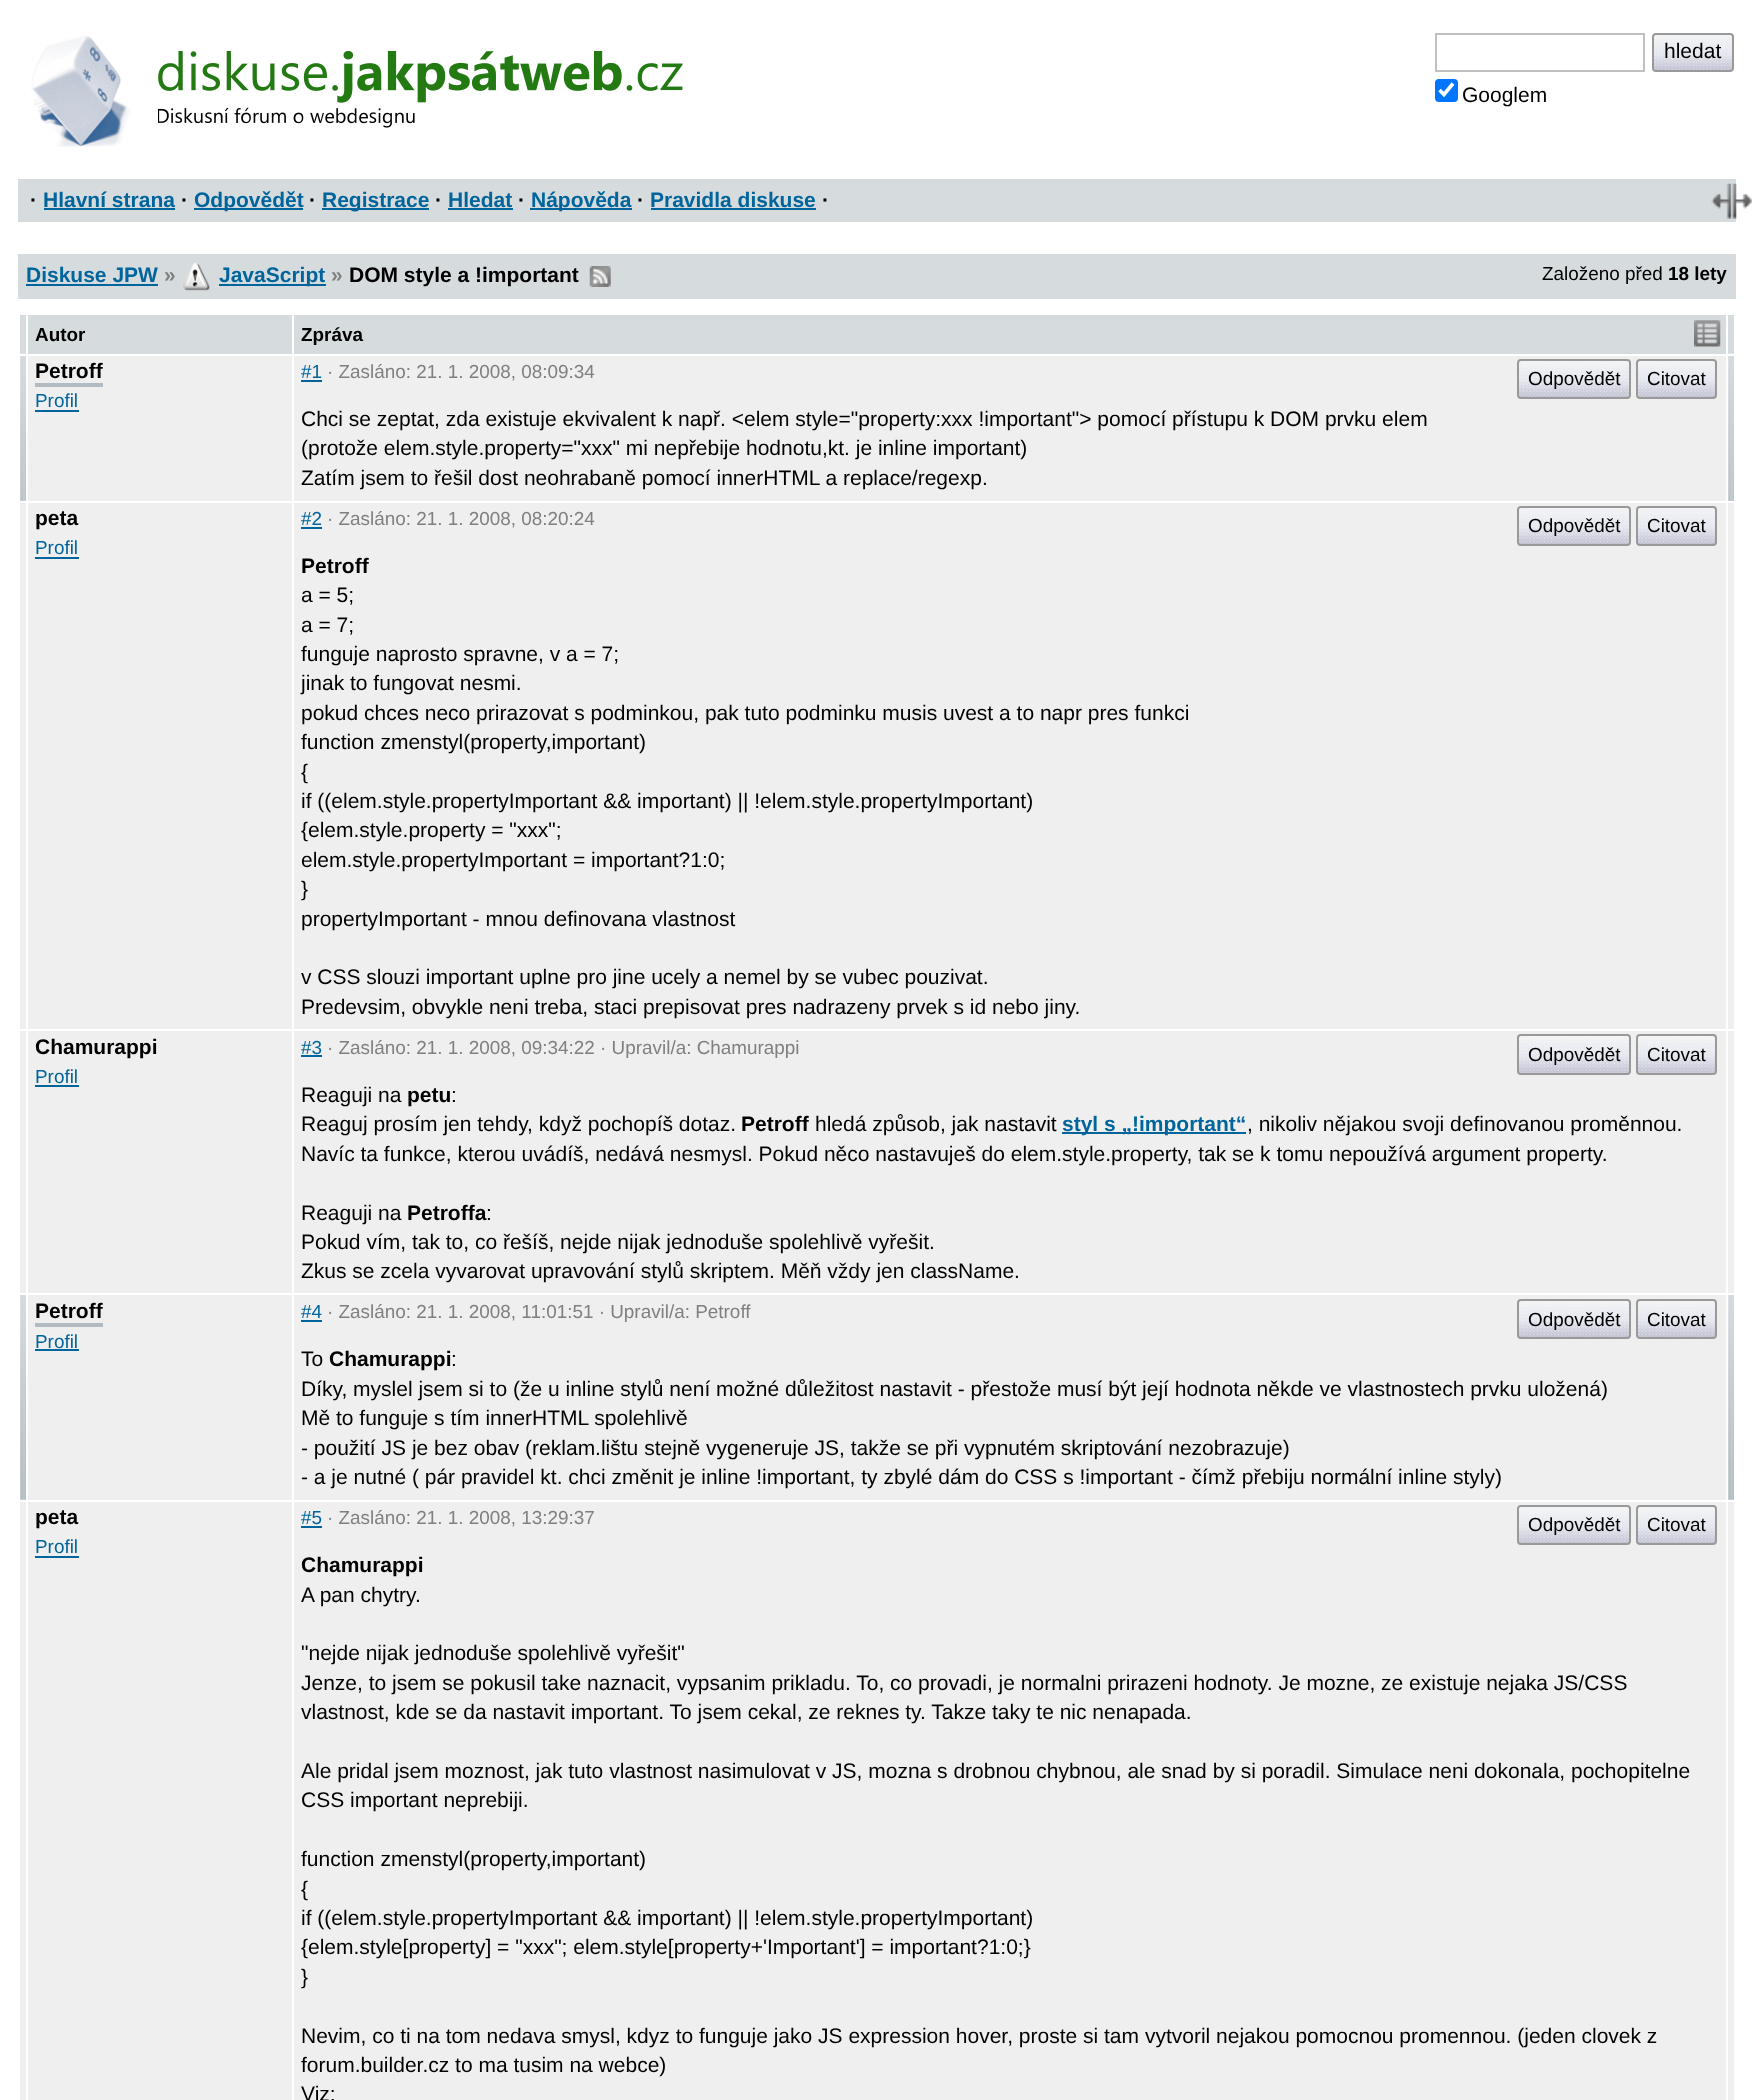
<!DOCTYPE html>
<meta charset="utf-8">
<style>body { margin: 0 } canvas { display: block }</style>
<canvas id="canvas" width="1753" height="2100"></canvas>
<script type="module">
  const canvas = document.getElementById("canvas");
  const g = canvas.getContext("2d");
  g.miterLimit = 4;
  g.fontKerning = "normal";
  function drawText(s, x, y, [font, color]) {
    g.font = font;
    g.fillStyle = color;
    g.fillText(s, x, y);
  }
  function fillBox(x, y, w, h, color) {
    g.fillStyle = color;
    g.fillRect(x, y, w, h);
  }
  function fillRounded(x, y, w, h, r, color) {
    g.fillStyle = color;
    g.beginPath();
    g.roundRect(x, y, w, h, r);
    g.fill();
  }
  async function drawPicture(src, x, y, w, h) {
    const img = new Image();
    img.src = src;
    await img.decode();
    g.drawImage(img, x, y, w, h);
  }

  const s1 = ["21px Liberation Sans", "#000000"];
  const s2 = ["bold 21px Liberation Sans", "#000000"];
  const s3 = ["bold 21px Liberation Sans", "#00659C"];
  const s4 = ["bold 21px Liberation Sans", "#808080"];
  const s5 = ["18.9px Liberation Sans", "#000000"];
  const s6 = ["bold 18.9px Liberation Sans", "#000000"];
  const s7 = ["18.9px Liberation Sans", "#00659C"];
  const s8 = ["18.9px Liberation Sans", "#808080"];

  fillBox(0, 0, 1753, 2100, "#FFFFFF");
  await drawPicture("pic1.png", 31, 36, 100, 111);
  await drawPicture("pic2.png", 158, 51, 525, 77);
  g.strokeStyle = "#C0C0C0";
  g.lineWidth = 2;
  g.strokeRect(1436, 34, 208, 37);
  fillRounded(1654, 35, 79, 35, 2, "#D6DBDE");
  await drawPicture("pic3.png", 1654, 35, 78, 35);
  g.beginPath();
  g.roundRect(1653, 34, 80, 37, 3);
  g.strokeStyle = "#999999";
  g.stroke();
  drawText("hledat", 1664, 58, s1);
  fillRounded(1435, 79, 23, 23, 4, "#0075FF");
  g.beginPath();
  g.moveTo(1439.5, 90);
  g.lineTo(1444, 94.5);
  g.lineTo(1453, 83.5);
  g.strokeStyle = "#FFFFFF";
  g.lineWidth = 3.6;
  g.stroke();
  drawText("Googlem", 1462, 102, s1);
  fillBox(18, 179, 1718, 43, "#D6DBDE");
  drawText("·", 30, 207, s2);
  drawText("Hlavní strana", 43, 207, s3);
  fillBox(44, 208, 131, 2, "#00659C");
  drawText("·", 181, 207, s2);
  fillBox(194, 208, 109, 2, "#00659C");
  drawText("Odpovědět", 194, 207, s3);
  drawText("·", 309, 207, s2);
  fillBox(322, 208, 107, 2, "#00659C");
  drawText("Registrace", 322, 207, s3);
  drawText("·", 435, 207, s2);
  drawText("Hledat", 448, 207, s3);
  fillBox(448, 208, 65, 2, "#00659C");
  drawText("·", 518, 207, s2);
  fillBox(530, 208, 102, 2, "#00659C");
  drawText("Nápověda", 531, 207, s3);
  drawText("·", 637, 207, s2);
  drawText("Pravidla diskuse", 650, 207, s3);
  fillBox(651, 208, 165, 2, "#00659C");
  drawText("·", 822, 207, s2);
  await drawPicture("pic4.png", 1711, 183, 41, 36);
  fillBox(18, 254, 1718, 45, "#D6DBDE");
  drawText("Diskuse JPW", 26, 282, s3);
  fillBox(26, 284, 132, 2, "#00659C");
  drawText("»", 164, 282, s4);
  await drawPicture("pic5.png", 183, 262, 27, 29);
  fillBox(219, 284, 107, 2, "#00659C");
  drawText("JavaScript", 219, 282, s3);
  drawText("»", 331, 282, s4);
  drawText("DOM style a !important", 349, 282, s2);
  await drawPicture("pic6.png", 589, 266, 22, 21);
  drawText("Založeno před", 1542, 280, s5);
  drawText("18 lety", 1668, 280, s6);
  fillBox(20, 315, 6, 39, "#D6DBDE");
  fillBox(28, 315, 264, 39, "#D6DBDE");
  drawText("Autor", 35, 341, s6);
  fillBox(294, 315, 1432, 39, "#D6DBDE");
  drawText("Zpráva", 301, 341, s6);
  fillBox(1728, 315, 6, 39, "#D6DBDE");
  fillBox(28, 356, 1698, 145, "#EFEFEF");
  fillBox(20, 500, 6, 1, "#B1BBC1");
  await drawPicture("pic7.png", 20, 353, 6, 148);
  fillBox(18, 354, 10, 2, "#FFFFFF");
  drawText("Petroff", 35, 378, s2);
  fillBox(35, 383, 68, 4, "#B1BBC1");
  drawText("Profil", 35, 407, s7);
  fillBox(35, 410, 44, 2, "#00659C");
  drawText("#1", 301, 378, s7);
  fillBox(301, 380, 21, 2, "#00659C");
  drawText("· Zasláno: 21. 1. 2008, 08:09:34", 327, 378, s8);
  fillRounded(1519, 361, 110, 36, 2, "#D6DBDE");
  await drawPicture("pic8.png", 1519, 361, 110, 36);
  g.beginPath();
  g.roundRect(1518, 360, 112, 38, 3);
  g.strokeStyle = "#999999";
  g.lineWidth = 2;
  g.stroke();
  drawText("Odpovědět", 1528, 385, s5);
  fillRounded(1638, 361, 77, 36, 2, "#D6DBDE");
  await drawPicture("pic9.png", 1638, 361, 77, 36);
  g.beginPath();
  g.roundRect(1637, 360, 79, 38, 3);
  g.stroke();
  drawText("Citovat", 1647, 385, s5);
  drawText("Chci se zeptat, zda existuje ekvivalent k např. <elem style=\"property:xxx !important\"> pomocí přístupu k DOM prvku elem", 301, 426, s1);
  drawText("(protože elem.style.property=\"xxx\" mi nepřebije hodnotu,kt. je inline important)", 301, 455, s1);
  drawText("Zatím jsem to řešil dost neohrabaně pomocí innerHTML a replace/regexp.", 301, 485, s1);
  fillBox(1728, 500, 6, 1, "#B1BBC1");
  await drawPicture("pic7.png", 1728, 353, 6, 148);
  fillBox(1726, 354, 10, 2, "#FFFFFF");
  fillBox(20, 503, 1714, 526, "#EFEFEF");
  drawText("peta", 35, 525, s2);
  drawText("Profil", 35, 554, s7);
  fillBox(35, 557, 44, 2, "#00659C");
  drawText("#2", 301, 525, s7);
  fillBox(301, 527, 21, 2, "#00659C");
  drawText("· Zasláno: 21. 1. 2008, 08:20:24", 327, 525, s8);
  fillRounded(1519, 508, 110, 36, 2, "#D6DBDE");
  await drawPicture("pic10.png", 1519, 508, 110, 36);
  g.beginPath();
  g.roundRect(1518, 507, 112, 38, 3);
  g.stroke();
  drawText("Odpovědět", 1528, 532, s5);
  fillRounded(1638, 508, 77, 36, 2, "#D6DBDE");
  await drawPicture("pic11.png", 1638, 508, 77, 36);
  g.beginPath();
  g.roundRect(1637, 507, 79, 38, 3);
  g.stroke();
  drawText("Citovat", 1647, 532, s5);
  drawText("Petroff", 301, 573, s2);
  drawText("a = 5;", 301, 602, s1);
  drawText("a = 7;", 301, 632, s1);
  drawText("funguje naprosto spravne, v a = 7;", 301, 661, s1);
  drawText("jinak to fungovat nesmi.", 301, 690, s1);
  drawText("pokud chces neco prirazovat s podminkou, pak tuto podminku musis uvest a to napr pres funkci", 301, 720, s1);
  drawText("function zmenstyl(property,important)", 301, 749, s1);
  drawText("{", 301, 779, s1);
  drawText("if ((elem.style.propertyImportant && important) || !elem.style.propertyImportant)", 301, 808, s1);
  drawText("{elem.style.property = \"xxx\";", 301, 837, s1);
  drawText("elem.style.propertyImportant = important?1:0;", 301, 867, s1);
  drawText("}", 301, 896, s1);
  drawText("propertyImportant - mnou definovana vlastnost", 301, 926, s1);
  drawText("v CSS slouzi important uplne pro jine ucely a nemel by se vubec pouzivat.", 301, 984, s1);
  drawText("Predevsim, obvykle neni treba, staci prepisovat pres nadrazeny prvek s id nebo jiny.", 301, 1014, s1);
  fillBox(20, 1031, 1714, 262, "#EFEFEF");
  drawText("Chamurappi", 35, 1054, s2);
  drawText("Profil", 35, 1083, s7);
  fillBox(35, 1085, 44, 2, "#00659C");
  drawText("#3", 301, 1054, s7);
  fillBox(301, 1055, 21, 2, "#00659C");
  drawText("· Zasláno: 21. 1. 2008, 09:34:22 · Upravil/a: Chamurappi", 327, 1054, s8);
  fillRounded(1519, 1036, 110, 37, 2, "#D6DBDE");
  await drawPicture("pic12.png", 1519, 1036, 110, 37);
  g.beginPath();
  g.roundRect(1518, 1035, 112, 39, 3);
  g.stroke();
  drawText("Odpovědět", 1528, 1061, s5);
  fillRounded(1638, 1036, 77, 37, 2, "#D6DBDE");
  await drawPicture("pic13.png", 1638, 1036, 77, 37);
  g.beginPath();
  g.roundRect(1637, 1035, 79, 39, 3);
  g.stroke();
  drawText("Citovat", 1647, 1061, s5);
  drawText("Reaguji na", 301, 1102, s1);
  drawText("petu", 407, 1102, s2);
  drawText(":", 451, 1102, s1);
  drawText("Reaguj prosím jen tehdy, když pochopíš dotaz.", 301, 1131, s1);
  drawText("Petroff", 741, 1131, s2);
  drawText("hledá způsob, jak nastavit", 815, 1131, s1);
  fillBox(1062, 1132, 184, 2, "#00659C");
  drawText("styl s „!important“", 1062, 1131, s3);
  drawText(", nikoliv nějakou svoji definovanou proměnnou.", 1247, 1131, s1);
  drawText("Navíc ta funkce, kterou uvádíš, nedává nesmysl. Pokud něco nastavuješ do elem.style.property, tak se k tomu nepoužívá argument property.", 301, 1161, s1);
  drawText("Reaguji na", 301, 1220, s1);
  drawText("Petroffa", 407, 1220, s2);
  drawText(":", 486, 1220, s1);
  drawText("Pokud vím, tak to, co řešíš, nejde nijak jednoduše spolehlivě vyřešit.", 301, 1249, s1);
  drawText("Zkus se zcela vyvarovat upravování stylů skriptem. Měň vždy jen className.", 301, 1278, s1);
  fillBox(20, 1295, 1714, 205, "#EFEFEF");
  await drawPicture("pic14.png", 20, 1295, 6, 205);
  drawText("Petroff", 35, 1318, s2);
  fillBox(35, 1323, 68, 4, "#B1BBC1");
  drawText("Profil", 35, 1348, s7);
  fillBox(35, 1349, 44, 2, "#00659C");
  drawText("#4", 301, 1318, s7);
  fillBox(301, 1320, 21, 2, "#00659C");
  drawText("· Zasláno: 21. 1. 2008, 11:01:51 · Upravil/a: Petroff", 327, 1318, s8);
  fillRounded(1519, 1300, 110, 37, 2, "#D6DBDE");
  await drawPicture("pic15.png", 1519, 1301, 110, 36);
  g.beginPath();
  g.roundRect(1518, 1300, 112, 38, 3);
  g.stroke();
  drawText("Odpovědět", 1528, 1326, s5);
  fillRounded(1638, 1300, 77, 37, 2, "#D6DBDE");
  await drawPicture("pic16.png", 1638, 1301, 77, 36);
  g.beginPath();
  g.roundRect(1637, 1300, 79, 38, 3);
  g.stroke();
  drawText("Citovat", 1647, 1326, s5);
  drawText("To", 301, 1366, s1);
  drawText("Chamurappi", 329, 1366, s2);
  drawText(":", 451, 1366, s1);
  drawText("Díky, myslel jsem si to (že u inline stylů není možné důležitost nastavit - přestože musí být její hodnota někde ve vlastnostech prvku uložená)", 301, 1396, s1);
  drawText("Mě to funguje s tím innerHTML spolehlivě", 301, 1425, s1);
  drawText("- použití JS je bez obav (reklam.lištu stejně vygeneruje JS, takže se při vypnutém skriptování nezobrazuje)", 301, 1455, s1);
  drawText("- a je nutné ( pár pravidel kt. chci změnit je inline !important, ty zbylé dám do CSS s !important - čímž přebiju normální inline styly)", 301, 1484, s1);
  await drawPicture("pic14.png", 1728, 1295, 6, 205);
  fillBox(20, 1502, 1714, 598, "#EFEFEF");
  fillBox(26, 501, 2, 1599, "#FFFFFF");
  drawText("peta", 35, 1524, s2);
  drawText("Profil", 35, 1553, s7);
  fillBox(35, 1556, 44, 2, "#00659C");
  fillBox(292, 354, 2, 1746, "#FFFFFF");
  drawText("#5", 301, 1524, s7);
  fillBox(301, 1526, 21, 2, "#00659C");
  drawText("· Zasláno: 21. 1. 2008, 13:29:37", 327, 1524, s8);
  fillRounded(1519, 1507, 110, 37, 2, "#D6DBDE");
  await drawPicture("pic17.png", 1519, 1507, 110, 36);
  g.beginPath();
  g.roundRect(1518, 1506, 112, 38, 3);
  g.stroke();
  drawText("Odpovědět", 1528, 1531, s5);
  fillRounded(1638, 1507, 77, 37, 2, "#D6DBDE");
  await drawPicture("pic18.png", 1638, 1507, 77, 36);
  g.beginPath();
  g.roundRect(1637, 1506, 79, 38, 3);
  g.stroke();
  drawText("Citovat", 1647, 1531, s5);
  drawText("Chamurappi", 301, 1572, s2);
  drawText("A pan chytry.", 301, 1602, s1);
  drawText("\"nejde nijak jednoduše spolehlivě vyřešit\"", 301, 1660, s1);
  drawText("Jenze, to jsem se pokusil take naznacit, vypsanim prikladu. To, co provadi, je normalni prirazeni hodnoty. Je mozne, ze existuje nejaka JS/CSS", 301, 1690, s1);
  drawText("vlastnost, kde se da nastavit important. To jsem cekal, ze reknes ty. Takze taky te nic nenapada.", 301, 1719, s1);
  drawText("Ale pridal jsem moznost, jak tuto vlastnost nasimulovat v JS, mozna s drobnou chybnou, ale snad by si poradil. Simulace neni dokonala, pochopitelne", 301, 1778, s1);
  drawText("CSS important neprebiji.", 301, 1807, s1);
  drawText("function zmenstyl(property,important)", 301, 1866, s1);
  drawText("{", 301, 1896, s1);
  drawText("if ((elem.style.propertyImportant && important) || !elem.style.propertyImportant)", 301, 1925, s1);
  drawText("{elem.style[property] = \"xxx\"; elem.style[property+'Important'] = important?1:0;}", 301, 1954, s1);
  drawText("}", 301, 1984, s1);
  drawText("Nevim, co ti na tom nedava smysl, kdyz to funguje jako JS expression hover, proste si tam vytvoril nejakou pomocnou promennou. (jeden clovek z", 301, 2043, s1);
  drawText("forum.builder.cz to ma tusim na webce)", 301, 2072, s1);
  drawText("Viz:", 301, 2101, s1);
  fillBox(1726, 501, 2, 1599, "#FFFFFF");
  await drawPicture("pic19.png", 1694, 320, 27, 27);
</script>
